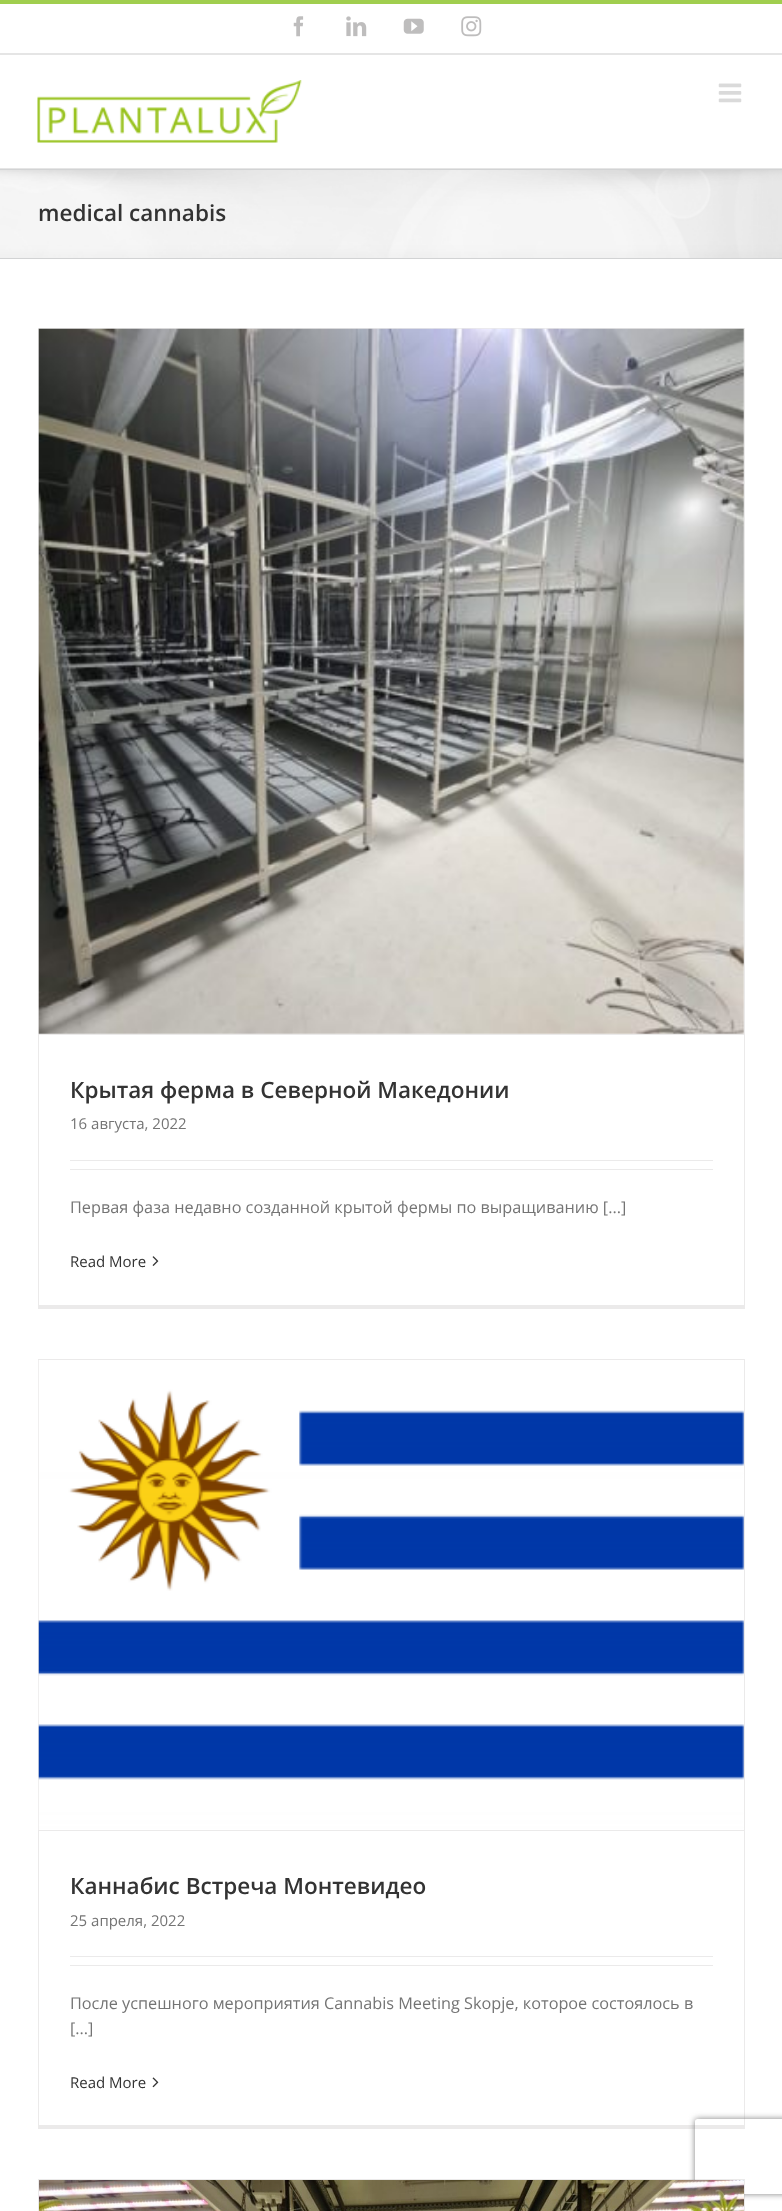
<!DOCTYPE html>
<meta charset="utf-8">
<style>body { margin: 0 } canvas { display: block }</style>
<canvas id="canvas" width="782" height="2211"></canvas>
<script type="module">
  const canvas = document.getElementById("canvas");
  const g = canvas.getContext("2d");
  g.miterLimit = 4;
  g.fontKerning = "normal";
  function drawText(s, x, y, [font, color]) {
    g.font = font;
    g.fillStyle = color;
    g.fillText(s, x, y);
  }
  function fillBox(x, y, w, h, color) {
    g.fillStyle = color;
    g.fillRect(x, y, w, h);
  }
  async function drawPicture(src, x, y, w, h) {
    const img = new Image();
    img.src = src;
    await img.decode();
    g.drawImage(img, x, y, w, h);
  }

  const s1 = ["600 22.5px Open Sans", "#333333"];
  const s2 = ["15px Open Sans", "#747474"];
  const s3 = ["16.25px Open Sans", "#747474"];
  const s4 = ["15px Open Sans", "#333333"];

  fillBox(0, 0, 782, 2211, "#FFFFFF");
  fillBox(0, 0, 782, 4, "#A0CE4E");
  fillBox(0, 53, 782, 2, "#E5E5E5");
  await drawPicture("pic1.png", 293, 16, 11, 21);
  await drawPicture("pic2.png", 346, 16, 21, 21);
  await drawPicture("pic3.png", 403, 18, 21, 16);
  await drawPicture("pic4.png", 461, 16, 21, 21);
  fillBox(0, 168, 782, 1, "#E5E5E5");
  await drawPicture("pic5.png", 37, 80, 265, 63);
  await drawPicture("pic6.png", 718, 83, 24, 20);
  fillBox(0, 170, 782, 88, "#F6F6F6");
  await drawPicture("pic7.png", 0, 170, 782, 88);
  fillBox(0, 169, 782, 1, "#D2D3D4");
  fillBox(0, 258, 782, 1, "#D2D3D4");
  drawText("medical cannabis", 38, 221, s1);
  fillBox(38, 328, 707, 1, "#EBEAEA");
  fillBox(744, 328, 1, 981, "#EBEAEA");
  fillBox(38, 1305, 707, 4, "#EBEAEA");
  fillBox(38, 328, 1, 981, "#EBEAEA");
  fillBox(39, 1034, 705, 1, "#EBEAEA");
  await drawPicture("pic8.png", 38, 328, 706, 706);
  drawText("Крытая ферма в Северной Македонии", 70, 1098, s1);
  drawText("16 августа, 2022", 70, 1129, s2);
  fillBox(70, 1160, 643, 1, "#EBEAEA");
  fillBox(70, 1169, 643, 1, "#EBEAEA");
  drawText("Первая фаза недавно созданной крытой фермы по выращиванию [...]", 70, 1213, s3);
  drawText("Read More", 70, 1267, s4);
  await drawPicture("pic9.png", 152, 1256, 7, 10);
  fillBox(38, 1359, 707, 1, "#EBEAEA");
  fillBox(744, 1359, 1, 770, "#EBEAEA");
  fillBox(38, 2125, 707, 4, "#EBEAEA");
  fillBox(38, 1359, 1, 770, "#EBEAEA");
  fillBox(39, 1830, 705, 1, "#EBEAEA");
  await drawPicture("pic10.png", 38, 1360, 706, 470);
  drawText("Каннабис Встреча Монтевидео", 70, 1894, s1);
  drawText("25 апреля, 2022", 70, 1926, s2);
  fillBox(70, 1956, 643, 1, "#EBEAEA");
  fillBox(70, 1965, 643, 1, "#EBEAEA");
  drawText("После успешного мероприятия Cannabis Meeting Skopje, которое состоялось в", 70, 2009, s3);
  drawText("[...]", 70, 2034, s3);
  drawText("Read More", 70, 2088, s4);
  await drawPicture("pic11.png", 152, 2077, 7, 11);
  fillBox(38, 2179, 707, 1, "#EBEAEA");
  fillBox(744, 2179, 1, 32, "#EBEAEA");
  fillBox(38, 2179, 1, 32, "#EBEAEA");
  g.save();
  g.beginPath();
  g.moveTo(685, 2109);
  g.lineTo(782, 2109);
  g.lineTo(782, 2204);
  g.lineTo(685, 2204);
  g.closePath();
  g.moveTo(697.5, 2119);
  g.lineTo(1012.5, 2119);
  g.bezierCurveTo(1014, 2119, 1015, 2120, 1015, 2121.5);
  g.lineTo(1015, 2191.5);
  g.bezierCurveTo(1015, 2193, 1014, 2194, 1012.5, 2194);
  g.lineTo(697.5, 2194);
  g.bezierCurveTo(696, 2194, 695, 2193, 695, 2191.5);
  g.lineTo(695, 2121.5);
  g.bezierCurveTo(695, 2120, 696, 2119, 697.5, 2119);
  g.closePath();
  g.clip("evenodd");
  g.fillStyle = "#808080";
  g.filter = "blur(3px)";
  g.beginPath();
  g.roundRect(695, 2119, 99, 75, 2.5);
  g.fill();
  g.filter = "none";
  g.restore();
  await drawPicture("pic12.png", 39, 2180, 705, 31);
</script>
